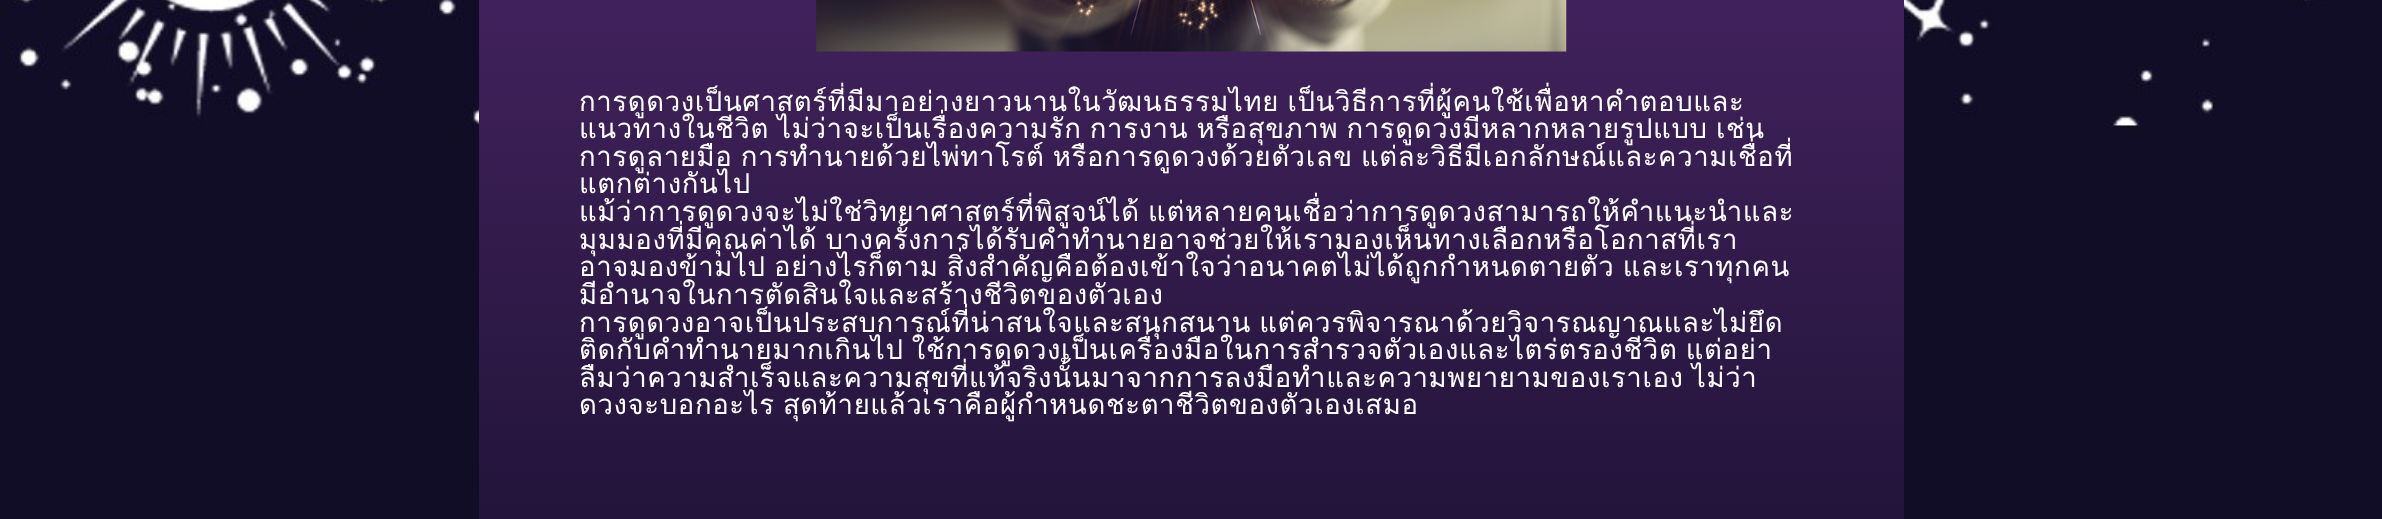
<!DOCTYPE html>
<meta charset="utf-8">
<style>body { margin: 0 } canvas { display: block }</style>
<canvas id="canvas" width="2382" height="519"></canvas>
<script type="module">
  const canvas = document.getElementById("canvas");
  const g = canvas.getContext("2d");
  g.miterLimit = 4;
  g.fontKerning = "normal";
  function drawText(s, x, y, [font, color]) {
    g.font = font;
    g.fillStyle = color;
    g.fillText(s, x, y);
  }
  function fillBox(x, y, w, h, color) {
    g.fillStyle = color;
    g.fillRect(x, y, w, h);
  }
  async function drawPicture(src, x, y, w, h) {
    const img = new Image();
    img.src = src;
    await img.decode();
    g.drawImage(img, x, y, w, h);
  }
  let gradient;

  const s1 = ["27.5px Loma", "#FFFFFF"];

  fillBox(0, 0, 2382, 519, "#FFFFFF");
  await drawPicture("pic1.png", 0, 0, 2382, 519);
  gradient = g.createLinearGradient(1191, -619, 1191, 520);
  gradient.addColorStop(0, "#3B2E82");
  gradient.addColorStop(0.43, "#492564");
  gradient.addColorStop(1, "#22143A");
  g.fillStyle = gradient;
  g.fillRect(479, 0, 1425, 519);
  await drawPicture("pic2.png", 816, 0, 751, 52);
  g.letterSpacing = "0.62px";
  g.wordSpacing = "-1.5px";
  drawText("การดูดวงเป็นศาสตร์ที่มีมาอย่างยาวนานในวัฒนธรรมไทย เป็นวิธีการที่ผู้คนใช้เพื่อหาคำตอบและ", 579, 111, s1);
  drawText("แนวทางในชีวิต ไม่ว่าจะเป็นเรื่องความรัก การงาน หรือสุขภาพ การดูดวงมีหลากหลายรูปแบบ เช่น", 579, 138, s1);
  drawText("การดูลายมือ การทำนายด้วยไพ่ทาโรต์ หรือการดูดวงด้วยตัวเลข แต่ละวิธีมีเอกลักษณ์และความเชื่อที่", 579, 166, s1);
  g.wordSpacing = "0px";
  drawText("แตกต่างกันไป", 579, 193, s1);
  g.wordSpacing = "-1.5px";
  drawText("แม้ว่าการดูดวงจะไม่ใช่วิทยาศาสตร์ที่พิสูจน์ได้ แต่หลายคนเชื่อว่าการดูดวงสามารถให้คำแนะนำและ", 579, 221, s1);
  drawText("มุมมองที่มีคุณค่าได้ บางครั้งการได้รับคำทำนายอาจช่วยให้เรามองเห็นทางเลือกหรือโอกาสที่เรา", 579, 249, s1);
  drawText("อาจมองข้ามไป อย่างไรก็ตาม สิ่งสำคัญคือต้องเข้าใจว่าอนาคตไม่ได้ถูกกำหนดตายตัว และเราทุกคน", 579, 276, s1);
  g.wordSpacing = "0px";
  drawText("มีอำนาจในการตัดสินใจและสร้างชีวิตของตัวเอง", 579, 304, s1);
  g.wordSpacing = "-1.5px";
  drawText("การดูดวงอาจเป็นประสบการณ์ที่น่าสนใจและสนุกสนาน แต่ควรพิจารณาด้วยวิจารณญาณและไม่ยึด", 579, 332, s1);
  drawText("ติดกับคำทำนายมากเกินไป ใช้การดูดวงเป็นเครื่องมือในการสำรวจตัวเองและไตร่ตรองชีวิต แต่อย่า", 579, 359, s1);
  drawText("ลืมว่าความสำเร็จและความสุขที่แท้จริงนั้นมาจากการลงมือทำและความพยายามของเราเอง ไม่ว่า", 579, 387, s1);
  drawText("ดวงจะบอกอะไร สุดท้ายแล้วเราคือผู้กำหนดชะตาชีวิตของตัวเองเสมอ", 579, 414, s1);
</script>
